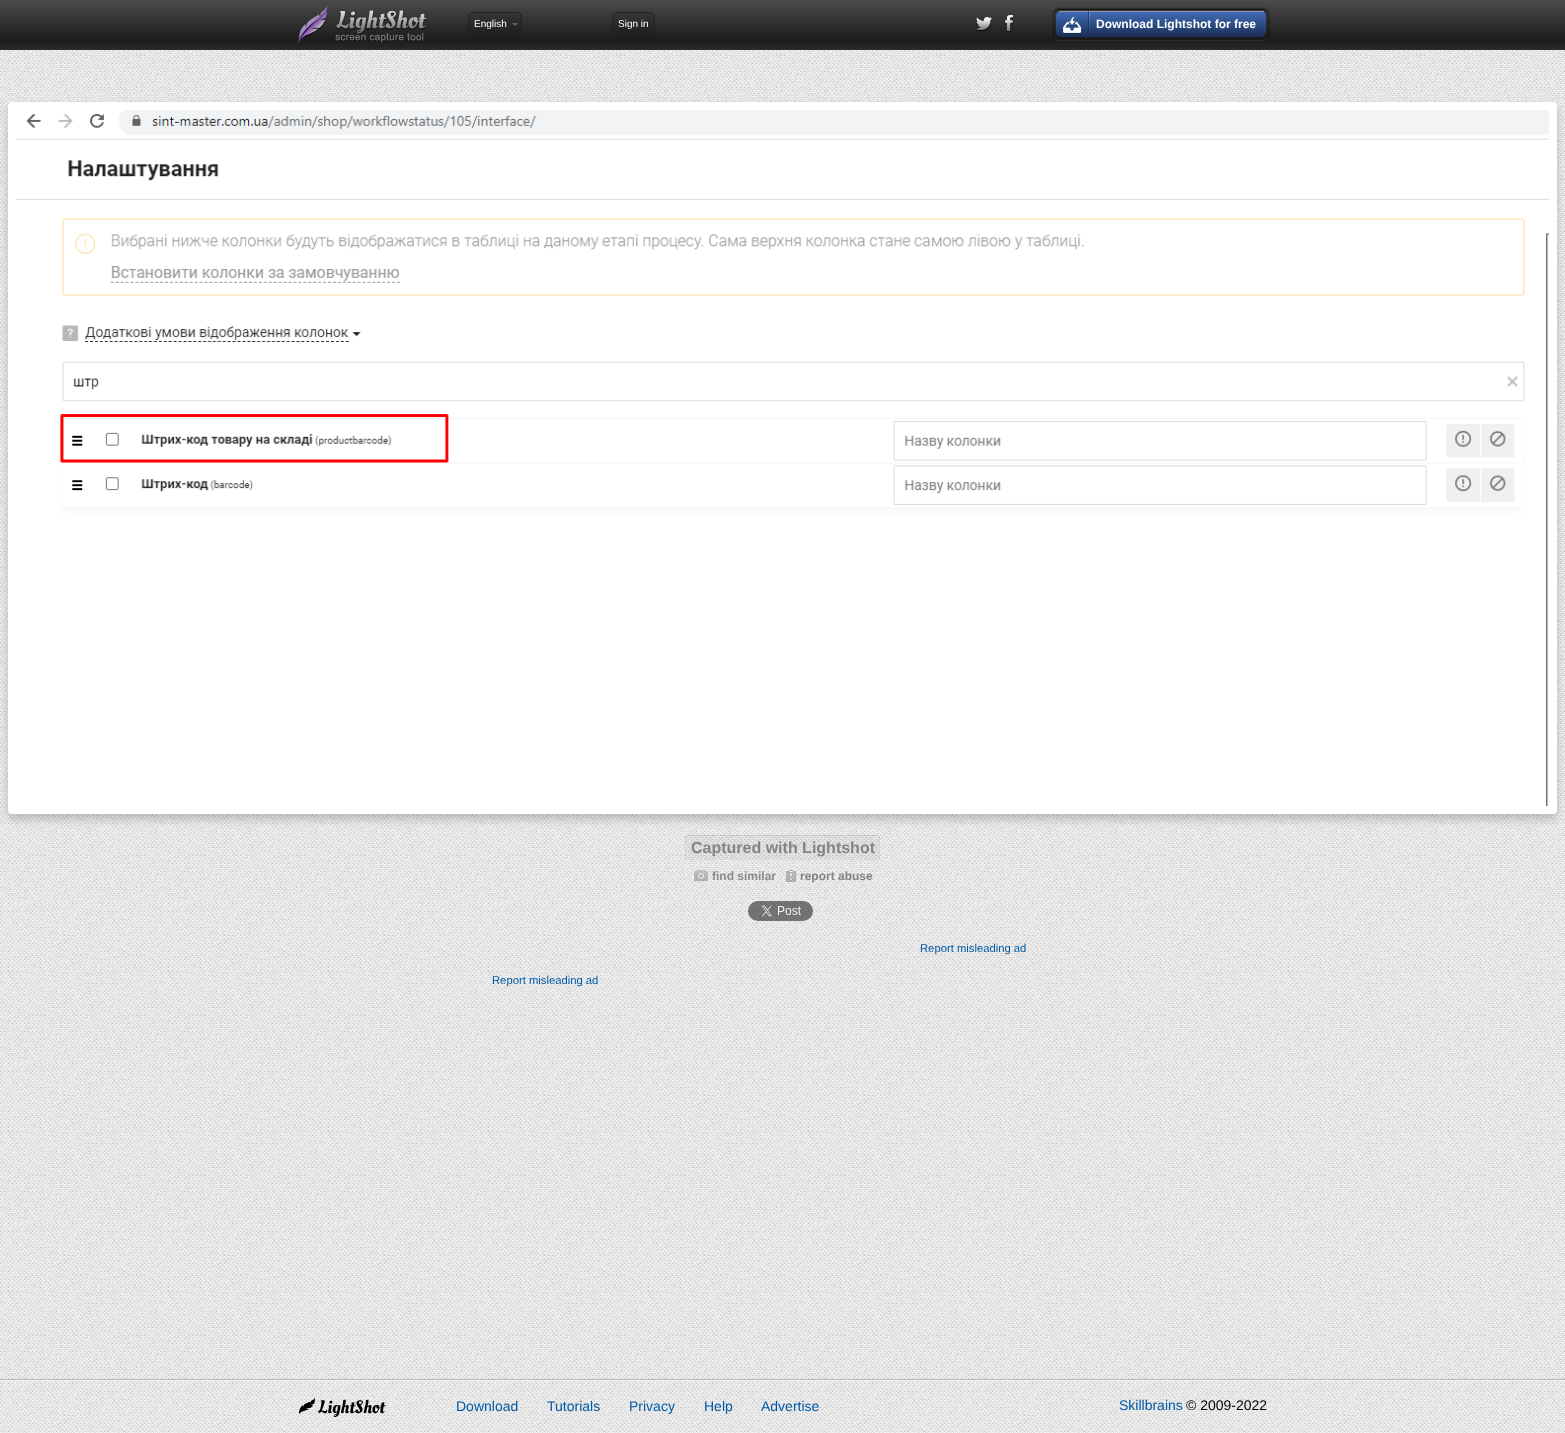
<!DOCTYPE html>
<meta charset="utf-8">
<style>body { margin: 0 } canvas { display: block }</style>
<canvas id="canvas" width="1565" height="1433"></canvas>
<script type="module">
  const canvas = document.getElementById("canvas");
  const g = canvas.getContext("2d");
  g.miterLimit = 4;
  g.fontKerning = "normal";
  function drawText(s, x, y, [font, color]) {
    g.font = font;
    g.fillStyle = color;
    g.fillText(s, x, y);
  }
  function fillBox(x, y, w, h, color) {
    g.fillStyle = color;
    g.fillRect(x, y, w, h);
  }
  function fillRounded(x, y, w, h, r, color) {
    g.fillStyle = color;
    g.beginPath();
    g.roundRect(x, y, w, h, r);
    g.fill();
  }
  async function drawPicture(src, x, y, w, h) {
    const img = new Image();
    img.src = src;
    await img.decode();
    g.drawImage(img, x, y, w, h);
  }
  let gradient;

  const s1 = ["10px Liberation Sans", "#FFFFFF"];
  const s2 = ["bold 12px Liberation Sans", "#FFFFFF"];
  const s3 = ["bold 16px Liberation Sans", "#848484"];
  const s4 = ["bold 12px Liberation Sans", "#8A8A8A"];
  const s5 = ["bold 12px Liberation Sans", "#848484"];
  const s6 = ["11.25px Liberation Sans", "#0059A5"];
  const s7 = ["14px Liberation Sans", "#0059A5"];
  const s8 = ["14px Liberation Sans", "#000000"];

  fillBox(0, 0, 1565, 1433, "#FFFFFF");
  await drawPicture("pic1.png", 0, 50, 1565, 1383);
  gradient = g.createLinearGradient(783, 0, 783, 50);
  gradient.addColorStop(0, "#4B4B4B");
  gradient.addColorStop(0.8, "#1C1C1C");
  gradient.addColorStop(1, "#2A2A2A");
  g.fillStyle = gradient;
  g.fillRect(0, 0, 1565, 50);
  await drawPicture("pic2.png", 298, 5, 129, 39);
  fillRounded(468, 12, 54, 23, 5, "rgba(0, 0, 0, 0.1)");
  g.beginPath();
  g.moveTo(520, 33);
  g.bezierCurveTo(519.5, 34, 518, 34.5, 517, 34.5);
  g.lineTo(473, 34.5);
  g.bezierCurveTo(472, 34.5, 470.5, 34, 470, 33);
  g.strokeStyle = "#222222";
  g.stroke();
  g.beginPath();
  g.moveTo(470, 33);
  g.bezierCurveTo(467.5, 31, 468.5, 26.5, 468.5, 23.5);
  g.bezierCurveTo(468.5, 12, 468.5, 12.5, 480.5, 12.5);
  g.lineTo(509.5, 12.5);
  g.bezierCurveTo(519.5, 12.5, 521.5, 11.5, 521.5, 21.5);
  g.bezierCurveTo(521.5, 24.5, 522.5, 30.5, 520, 33);
  g.strokeStyle = "#212121";
  g.stroke();
  drawText("English", 474, 27, s1);
  g.fillStyle = "#666666";
  g.beginPath();
  g.moveTo(512, 23);
  g.lineTo(518, 23);
  g.lineTo(515, 26);
  g.closePath();
  g.fill();
  fillRounded(612, 12, 43, 23, 5, "rgba(0, 0, 0, 0.1)");
  g.beginPath();
  g.moveTo(653, 33);
  g.bezierCurveTo(652.5, 34, 651, 34.5, 650, 34.5);
  g.lineTo(617, 34.5);
  g.bezierCurveTo(616, 34.5, 614.5, 34, 614, 33);
  g.strokeStyle = "#222222";
  g.stroke();
  g.beginPath();
  g.moveTo(614, 33);
  g.bezierCurveTo(611.5, 31, 612.5, 26.5, 612.5, 23.5);
  g.bezierCurveTo(612.5, 13.5, 612, 12.5, 622.5, 12.5);
  g.lineTo(644.5, 12.5);
  g.bezierCurveTo(655, 12.5, 654.5, 13.5, 654.5, 23.5);
  g.bezierCurveTo(654.5, 26.5, 655.5, 31, 653, 33);
  g.strokeStyle = "#212121";
  g.stroke();
  drawText("Sign in", 618, 27, s1);
  await drawPicture("pic3.png", 976, 17, 16, 15);
  await drawPicture("pic4.png", 1004, 15, 10, 18);
  g.save();
  g.beginPath();
  g.moveTo(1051, 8);
  g.lineTo(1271, 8);
  g.lineTo(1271, 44);
  g.lineTo(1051, 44);
  g.closePath();
  g.moveTo(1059, 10);
  g.lineTo(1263, 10);
  g.bezierCurveTo(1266, 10, 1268, 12, 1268, 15);
  g.lineTo(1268, 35);
  g.bezierCurveTo(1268, 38, 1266, 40, 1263, 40);
  g.lineTo(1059, 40);
  g.bezierCurveTo(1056, 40, 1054, 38, 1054, 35);
  g.lineTo(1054, 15);
  g.bezierCurveTo(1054, 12, 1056, 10, 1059, 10);
  g.closePath();
  g.clip("evenodd");
  g.fillStyle = "rgba(255, 255, 255, 0.1)";
  g.filter = "blur(0.5px)";
  g.beginPath();
  g.roundRect(1054, 11, 214, 30, 5);
  g.fill();
  g.filter = "none";
  g.restore();
  g.save();
  g.beginPath();
  g.moveTo(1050, 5);
  g.lineTo(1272, 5);
  g.lineTo(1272, 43);
  g.lineTo(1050, 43);
  g.closePath();
  g.moveTo(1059, 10);
  g.lineTo(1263, 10);
  g.bezierCurveTo(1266, 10, 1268, 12, 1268, 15);
  g.lineTo(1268, 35);
  g.bezierCurveTo(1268, 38, 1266, 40, 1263, 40);
  g.lineTo(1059, 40);
  g.bezierCurveTo(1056, 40, 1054, 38, 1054, 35);
  g.lineTo(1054, 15);
  g.bezierCurveTo(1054, 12, 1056, 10, 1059, 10);
  g.closePath();
  g.clip("evenodd");
  g.fillStyle = "rgba(0, 0, 0, 0.99)";
  g.filter = "blur(1px)";
  g.beginPath();
  g.roundRect(1054, 9, 214, 30, 5);
  g.fill();
  g.filter = "none";
  g.restore();
  fillRounded(1054, 10, 214, 30, 5, "rgba(0, 0, 0, 0.11)");
  g.save();
  g.beginPath();
  g.roundRect(1056, 11, 210, 26, 5);
  g.clip();
  gradient = g.createLinearGradient(1161, -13, 1161, 12);
  gradient.addColorStop(0, "#406CB6");
  gradient.addColorStop(1, "#1B2D54");
  g.fillStyle = gradient;
  g.fillRect(1056, 11, 210, 1);
  gradient = g.createLinearGradient(1161, 12, 1161, 37);
  gradient.addColorStop(0, "rgba(64, 109, 184, 0.98)");
  gradient.addColorStop(1, "rgba(26, 45, 84, 0.98)");
  g.fillStyle = gradient;
  g.beginPath();
  g.roundRect(1056, 12, 210, 25, [0, 0, 5, 5]);
  g.fill();
  g.restore();
  fillBox(1059, 11, 205, 1, "rgba(251, 251, 251, 0.5)");
  await drawPicture("pic5.png", 1063, 16, 19, 18);
  await drawPicture("pic6.png", 1088, 11, 2, 26);
  drawText("Download Lightshot for free", 1096, 28, s2);
  g.fillStyle = "rgba(0, 0, 0, 0.2)";
  g.filter = "blur(5px)";
  g.beginPath();
  g.roundRect(8, 107, 1549, 712, 4);
  g.fill();
  g.filter = "none";
  fillRounded(8, 102, 1549, 712, 4, "#FFFFFF");
  await drawPicture("pic7.png", 16, 110, 1533, 696);
  g.save();
  g.beginPath();
  g.moveTo(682, 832);
  g.lineTo(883, 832);
  g.lineTo(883, 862);
  g.lineTo(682, 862);
  g.closePath();
  g.moveTo(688, 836);
  g.lineTo(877, 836);
  g.bezierCurveTo(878.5, 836, 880, 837.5, 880, 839);
  g.lineTo(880, 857);
  g.bezierCurveTo(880, 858.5, 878.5, 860, 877, 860);
  g.lineTo(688, 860);
  g.bezierCurveTo(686.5, 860, 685, 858.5, 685, 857);
  g.lineTo(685, 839);
  g.bezierCurveTo(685, 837.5, 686.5, 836, 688, 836);
  g.closePath();
  g.clip("evenodd");
  g.fillStyle = "rgba(0, 0, 0, 0.12)";
  g.filter = "blur(0.5px)";
  g.beginPath();
  g.roundRect(685, 835, 195, 24, 3);
  g.fill();
  g.filter = "none";
  g.restore();
  fillBox(685, 836, 195, 24, "rgba(0, 0, 0, 0.04)");
  fillBox(879, 838, 1, 21, "rgba(0, 0, 0, 0.04)");
  fillBox(685, 838, 1, 21, "rgba(0, 0, 0, 0.04)");
  drawText("Captured with Lightshot", 691, 853, s3);
  await drawPicture("pic8.png", 694, 870, 14, 11);
  drawText("find similar", 712, 880, s4);
  await drawPicture("pic9.png", 786, 870, 10, 12);
  drawText("report abuse", 800, 880, s5);
  await drawPicture("pic10.png", 748, 901, 65, 20);
  drawText("Report misleading ad", 920, 952, s6);
  drawText("Report misleading ad", 492, 984, s6);
  fillBox(0, 1379, 1565, 1, "rgba(0, 0, 0, 0.2)");
  fillBox(0, 1380, 1565, 1, "rgba(255, 255, 255, 0.6)");
  await drawPicture("pic11.png", 299, 1398, 87, 19);
  drawText("Download", 456, 1411, s7);
  drawText("Tutorials", 547, 1411, s7);
  drawText("Privacy", 629, 1411, s7);
  drawText("Help", 704, 1411, s7);
  drawText("Advertise", 761, 1411, s7);
  drawText("Skillbrains", 1119, 1410, s7);
  drawText("© 2009-2022", 1186, 1410, s8);
</script>
